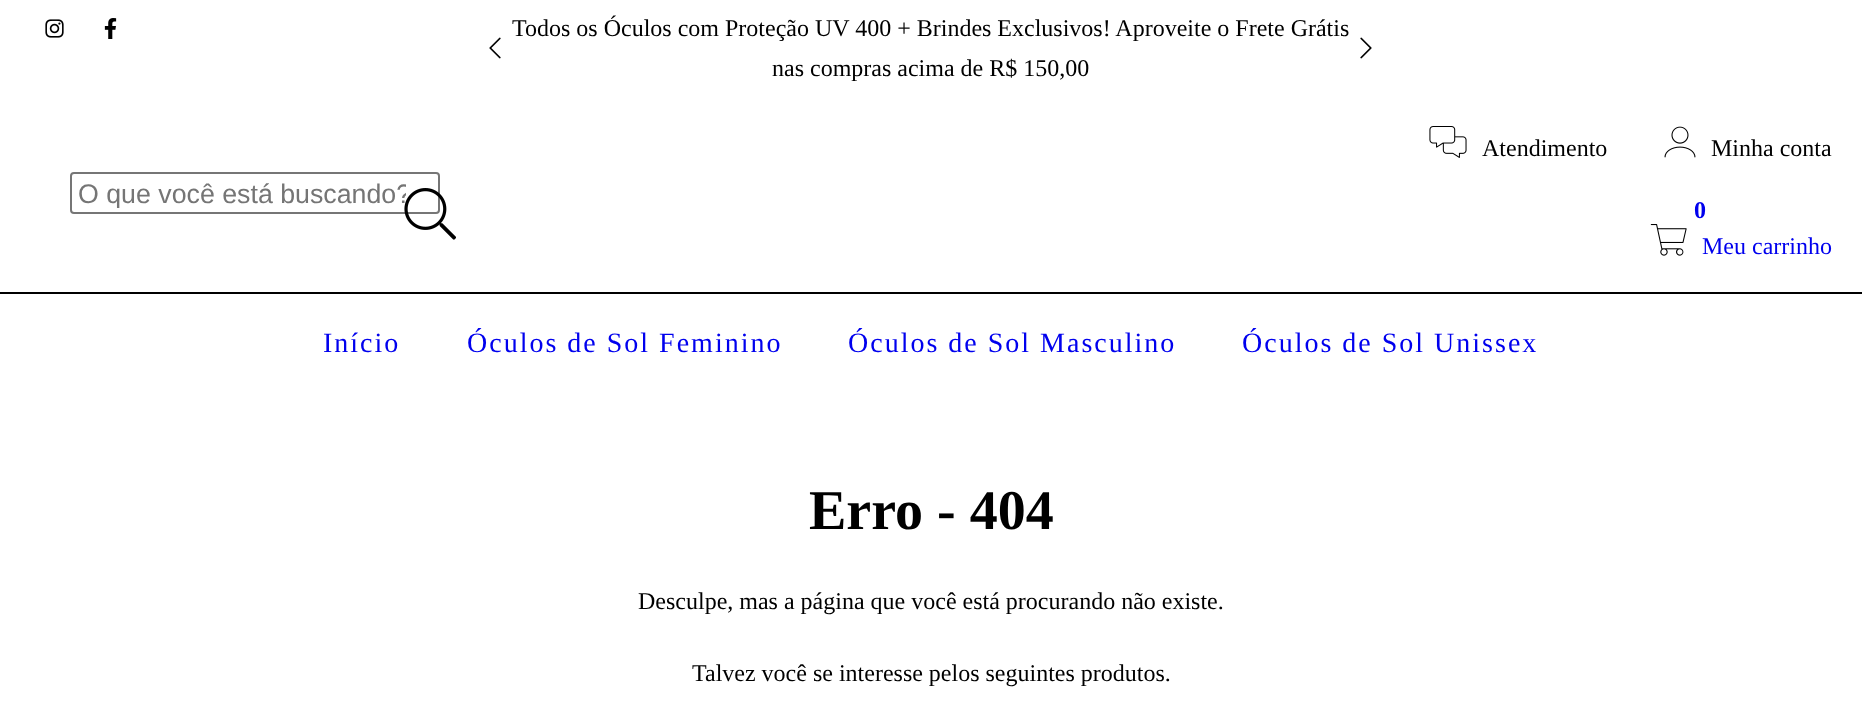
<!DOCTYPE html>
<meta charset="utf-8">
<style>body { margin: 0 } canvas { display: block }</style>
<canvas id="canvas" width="1862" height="713"></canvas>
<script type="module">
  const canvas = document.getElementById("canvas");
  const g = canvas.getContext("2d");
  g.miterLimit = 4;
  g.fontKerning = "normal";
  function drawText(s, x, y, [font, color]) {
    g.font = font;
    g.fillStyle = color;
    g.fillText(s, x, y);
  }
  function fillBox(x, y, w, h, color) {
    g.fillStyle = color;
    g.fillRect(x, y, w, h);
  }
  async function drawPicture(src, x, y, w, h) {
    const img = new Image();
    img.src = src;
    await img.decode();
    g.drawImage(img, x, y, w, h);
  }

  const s1 = ["24px Liberation Serif", "#000000"];
  const s2 = ["26.75px Liberation Sans", "#757575"];
  const s3 = ["bold 24px Liberation Serif", "#0000EE"];
  const s4 = ["24px Liberation Serif", "#0000EE"];
  const s5 = ["28px Liberation Serif", "#0000EE"];
  const s6 = ["bold 56px Liberation Serif", "#000000"];

  fillBox(0, 0, 1862, 713, "#FFFFFF");
  await drawPicture("pic1.png", 45, 19, 19, 19);
  await drawPicture("pic2.png", 104, 18, 13, 21);
  await drawPicture("pic3.png", 489, 37, 12, 22);
  drawText("Todos os Óculos com Proteção UV 400 + Brindes Exclusivos! Aproveite o Frete Grátis", 512, 36, s1);
  drawText("nas compras acima de R$ 150,00", 772, 76, s1);
  await drawPicture("pic4.png", 1360, 37, 12, 22);
  g.beginPath();
  g.roundRect(71, 173, 368, 40, 3);
  g.strokeStyle = "#767676";
  g.lineWidth = 2;
  g.stroke();
  g.save();
  g.beginPath();
  g.rect(78, 178, 328, 30);
  g.clip();
  drawText("O que você está buscando?", 78, 203, s2);
  g.restore();
  await drawPicture("pic5.png", 404, 188, 52, 52);
  await drawPicture("pic6.png", 1429, 126, 38, 32);
  drawText("Atendimento", 1482, 156, s1);
  await drawPicture("pic7.png", 1664, 126, 32, 32);
  drawText("Minha conta", 1711, 156, s1);
  drawText("0", 1694, 218, s3);
  await drawPicture("pic8.png", 1650, 224, 37, 32);
  drawText("Meu carrinho", 1702, 254, s4);
  fillBox(0, 292, 1862, 2, "#000000");
  g.letterSpacing = "2px";
  drawText("Início", 323, 352, s5);
  drawText("Óculos de Sol Feminino", 467, 352, s5);
  drawText("Óculos de Sol Masculino", 848, 352, s5);
  drawText("Óculos de Sol Unissex", 1242, 352, s5);
  g.letterSpacing = "0px";
  drawText("Erro - 404", 809, 529, s6);
  drawText("Desculpe, mas a página que você está procurando não existe.", 638, 609, s1);
  drawText("Talvez você se interesse pelos seguintes produtos.", 692, 681, s1);
</script>
